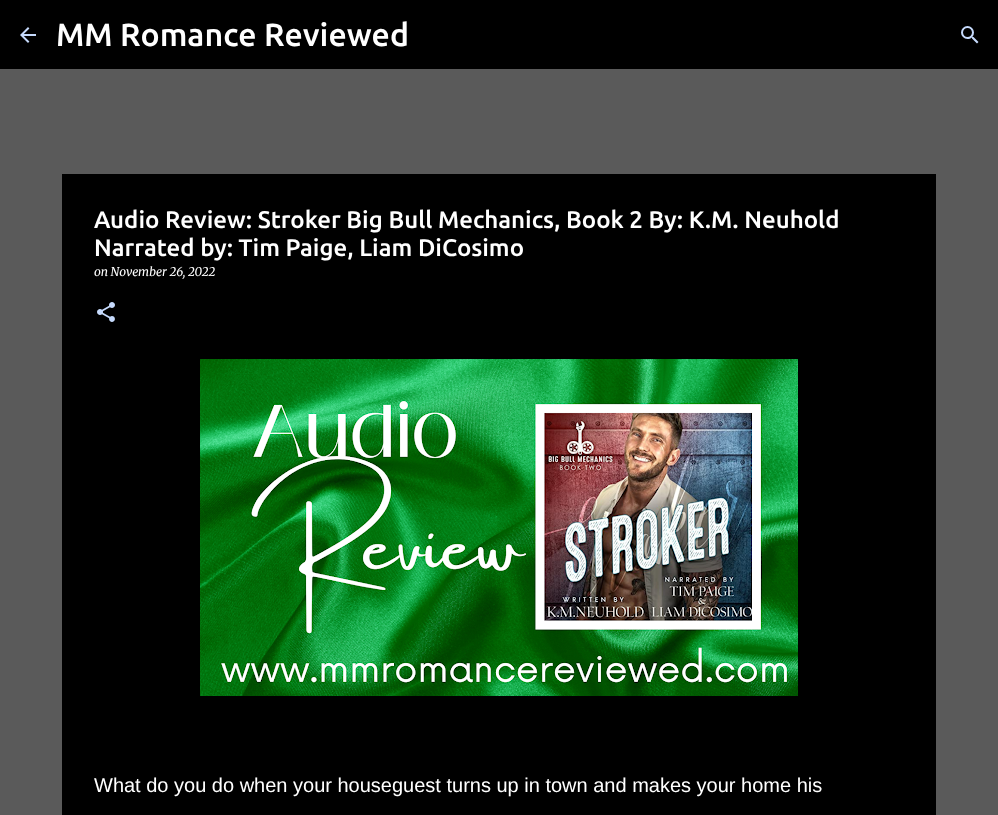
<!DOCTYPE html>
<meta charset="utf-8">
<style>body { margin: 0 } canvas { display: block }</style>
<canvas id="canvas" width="998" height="815"></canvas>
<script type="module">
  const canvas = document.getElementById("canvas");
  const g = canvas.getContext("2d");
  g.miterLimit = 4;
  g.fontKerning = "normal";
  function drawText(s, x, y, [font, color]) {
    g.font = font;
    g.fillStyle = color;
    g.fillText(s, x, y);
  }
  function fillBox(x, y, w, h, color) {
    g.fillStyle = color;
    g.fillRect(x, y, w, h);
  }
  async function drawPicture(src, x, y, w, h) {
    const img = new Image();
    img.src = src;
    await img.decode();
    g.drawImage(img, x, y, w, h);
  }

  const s1 = ["500 32px Ubuntu", "#FFFFFF"];
  const s2 = ["500 24px Ubuntu", "#FFFFFF"];
  const s3 = ["italic 12px Merriweather", "#FFFFFF"];
  const s4 = ["20px Liberation Sans", "#FFFFFF"];

  fillBox(0, 0, 998, 815, "#5A5A5A");
  fillBox(0, 0, 998, 69, "#000000");
  await drawPicture("pic1.png", 20, 27, 16, 16);
  drawText("MM Romance Reviewed", 56, 46, s1);
  await drawPicture("pic2.png", 961, 26, 18, 18);
  fillBox(62, 174, 874, 641, "#000000");
  drawText("Audio Review: Stroker Big Bull Mechanics, Book 2 By: K.M. Neuhold", 94, 228, s2);
  drawText("Narrated by: Tim Paige, Liam DiCosimo", 94, 256, s2);
  drawText("on November 26, 2022", 94, 276, s3);
  await drawPicture("pic3.png", 97, 302, 18, 20);
  await drawPicture("pic4.png", 200, 359, 598, 337);
  drawText("What do you do when your houseguest turns up in town and makes your home his", 94, 792, s4);
</script>
